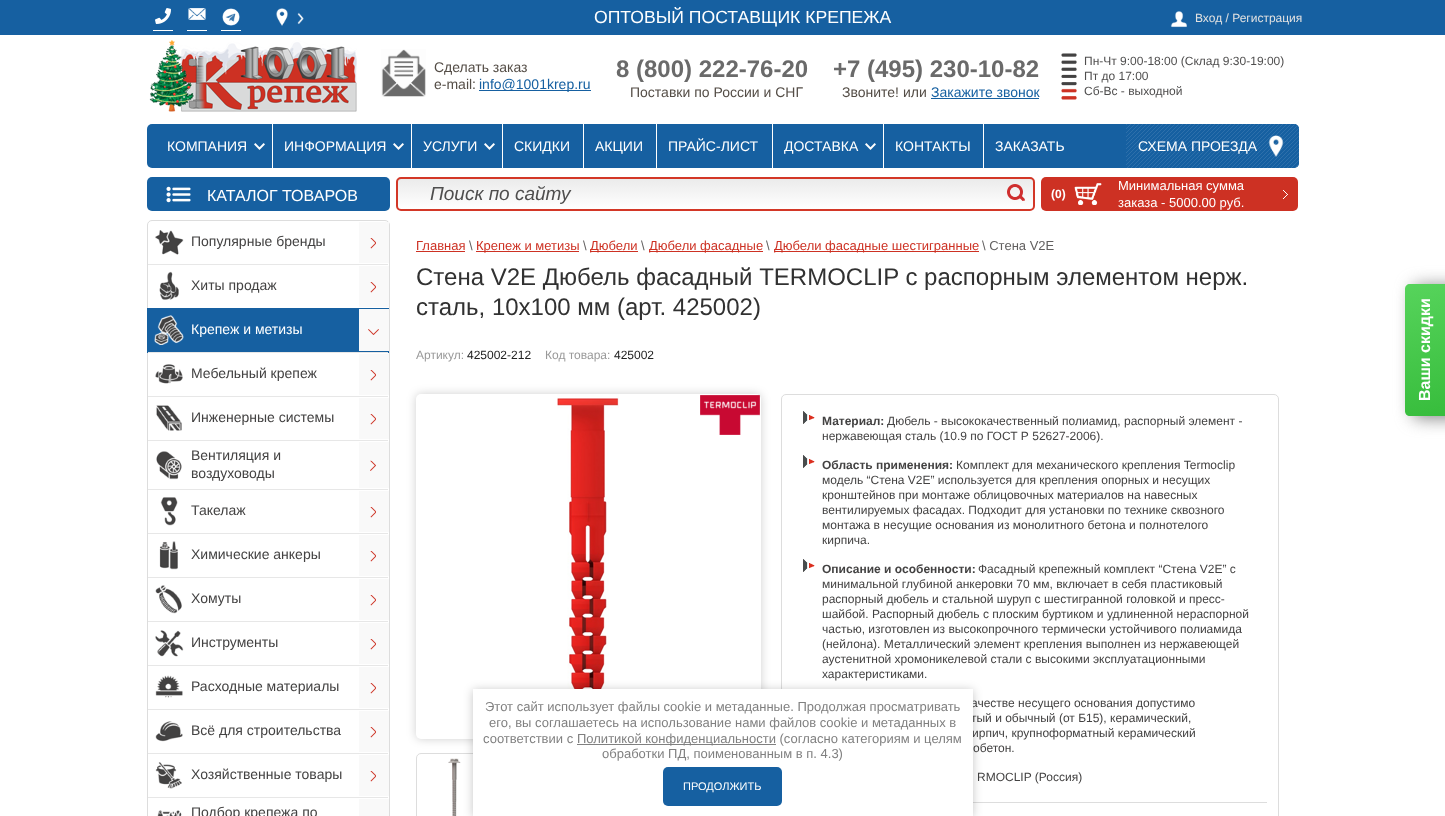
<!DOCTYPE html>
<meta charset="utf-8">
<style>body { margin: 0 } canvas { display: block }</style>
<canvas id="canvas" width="1445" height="816"></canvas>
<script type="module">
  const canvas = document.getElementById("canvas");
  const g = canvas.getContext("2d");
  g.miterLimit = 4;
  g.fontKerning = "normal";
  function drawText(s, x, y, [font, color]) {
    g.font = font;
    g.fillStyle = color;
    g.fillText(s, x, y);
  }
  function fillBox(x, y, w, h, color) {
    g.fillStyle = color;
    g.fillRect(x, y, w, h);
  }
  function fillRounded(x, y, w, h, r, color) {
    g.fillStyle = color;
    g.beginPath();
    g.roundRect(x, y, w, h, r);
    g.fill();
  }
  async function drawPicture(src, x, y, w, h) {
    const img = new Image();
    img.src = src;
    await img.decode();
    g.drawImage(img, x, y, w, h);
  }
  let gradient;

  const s1 = ["17.6px Liberation Sans", "#FFFFFF"];
  const s2 = ["12px Liberation Sans", "#E1E1E1"];
  const s3 = ["14px Liberation Sans", "#544D46"];
  const s4 = ["14px Liberation Sans", "#1660A1"];
  const s5 = ["bold 24px Liberation Sans", "#6A6A6A"];
  const s6 = ["12px Liberation Sans", "#4F4E4E"];
  const s7 = ["14px Liberation Sans", "#FFFFFF"];
  const s8 = ["16px Liberation Sans", "#FFFFFF"];
  const s9 = ["italic 19px Liberation Sans", "#4F4E4E"];
  const s10 = ["bold 12px Liberation Sans", "#FFFFFF"];
  const s11 = ["13px Liberation Sans", "#FFFFFF"];
  const s12 = ["14px Liberation Sans", "#434242"];
  const s13 = ["13px Liberation Sans", "#CD3123"];
  const s14 = ["13px Liberation Sans", "#615F5F"];
  const s15 = ["24px Liberation Sans", "#313131"];
  const s16 = ["12px Liberation Sans", "#999999"];
  const s17 = ["12px Liberation Sans", "#212121"];
  const s18 = ["bold 12px Liberation Sans", "#434242"];
  const s19 = ["12px Liberation Sans", "#434242"];
  const s20 = ["13px Liberation Sans", "#808080"];
  const s21 = ["11px Liberation Sans", "#FFFFFF"];

  fillBox(0, 0, 1445, 816, "#FFFFFF");
  fillBox(0, 0, 1445, 35, "#1660A1");
  fillBox(153, 30, 20, 1, "#FFFFFF");
  await drawPicture("pic1.png", 155, 8, 16, 16);
  fillBox(187, 30, 20, 1, "#FFFFFF");
  await drawPicture("pic2.png", 188, 8, 18, 12);
  fillBox(221, 30, 20, 1, "#FFFFFF");
  await drawPicture("pic3.png", 222, 8, 18, 18);
  await drawPicture("pic4.png", 276, 8, 12, 18);
  await drawPicture("pic5.png", 297, 12, 7, 13);
  drawText("ОПТОВЫЙ ПОСТАВЩИК КРЕПЕЖА", 594, 23, s1);
  await drawPicture("pic6.png", 1170, 11, 17, 17);
  drawText("Вход / Регистрация", 1195, 22, s2);
  await drawPicture("pic7.png", 149, 40, 208, 72);
  await drawPicture("pic8.png", 381, 49, 45, 48);
  drawText("Сделать заказ", 434, 72, s3);
  drawText("e-mail:", 434, 89, s3);
  fillBox(479, 90, 112, 1, "#1660A1");
  drawText("info@1001krep.ru", 479, 89, s4);
  drawText("8 (800) 222-76-20", 616, 77, s5);
  drawText("Поставки по России и СНГ", 630, 97, s3);
  drawText("+7 (495) 230-10-82", 833, 77, s5);
  drawText("Звоните! или", 842, 97, s3);
  drawText("Закажите звонок", 931, 97, s4);
  fillBox(931, 98, 108, 1, "#1660A1");
  await drawPicture("pic9.png", 1061, 53, 16, 47);
  drawText("Пн-Чт 9:00-18:00 (Склад 9:30-19:00)", 1084, 65, s6);
  drawText("Пт до 17:00", 1084, 80, s6);
  drawText("Сб-Вс - выходной", 1084, 95, s6);
  fillRounded(147, 124, 1152, 44, 5, "#1660A1");
  drawText("КОМПАНИЯ", 167, 151, s7);
  await drawPicture("pic10.png", 254, 143, 11, 7);
  fillBox(272, 124, 1, 44, "#FFFFFF");
  drawText("ИНФОРМАЦИЯ", 284, 151, s7);
  await drawPicture("pic10.png", 393, 143, 11, 7);
  fillBox(411, 124, 1, 44, "#FFFFFF");
  drawText("УСЛУГИ", 423, 151, s7);
  await drawPicture("pic10.png", 484, 143, 11, 7);
  fillBox(502, 124, 1, 44, "#FFFFFF");
  drawText("СКИДКИ", 514, 151, s7);
  fillBox(583, 124, 1, 44, "#FFFFFF");
  drawText("АКЦИИ", 595, 151, s7);
  fillBox(656, 124, 1, 44, "#FFFFFF");
  drawText("ПРАЙС-ЛИСТ", 668, 151, s7);
  fillBox(772, 124, 1, 44, "#FFFFFF");
  drawText("ДОСТАВКА", 784, 151, s7);
  await drawPicture("pic10.png", 865, 143, 11, 7);
  fillBox(883, 124, 1, 44, "#FFFFFF");
  drawText("КОНТАКТЫ", 895, 151, s7);
  fillBox(983, 124, 1, 44, "#FFFFFF");
  drawText("ЗАКАЗАТЬ", 995, 151, s7);
  g.fillStyle = "#1660A1";
  g.beginPath();
  g.roundRect(1126, 124, 173, 44, [0, 5, 5, 0]);
  g.fill();
  await drawPicture("pic11.png", 1126, 124, 173, 44);
  await drawPicture("pic12.png", 1268, 135, 16, 22);
  drawText("СХЕМА ПРОЕЗДА", 1138, 151, s7);
  fillRounded(147, 177, 243, 34, 5, "#1660A1");
  await drawPicture("pic13.png", 166, 186, 25, 17);
  drawText("КАТАЛОГ ТОВАРОВ", 207, 201, s8);
  g.save();
  g.beginPath();
  g.roundRect(396, 177, 639, 34, 5);
  g.clip();
  gradient = g.createLinearGradient(716, 179, 716, 209);
  gradient.addColorStop(0, "#EBEBEB");
  gradient.addColorStop(1, "#FFFFFF");
  g.fillStyle = gradient;
  g.fillRect(396, 179, 639, 30);
  g.restore();
  g.beginPath();
  g.roundRect(397, 178, 637, 32, 4);
  g.strokeStyle = "#D33727";
  g.lineWidth = 2;
  g.stroke();
  drawText("Поиск по сайту", 430, 200, s9);
  await drawPicture("pic14.png", 1007, 184, 18, 17);
  fillRounded(1041, 177, 257, 34, 5, "#CD3123");
  await drawPicture("pic15.png", 1283, 190, 5, 9);
  drawText("(0)", 1051, 198, s10);
  await drawPicture("pic16.png", 1074, 183, 28, 22);
  drawText("Минимальная сумма", 1118, 190, s11);
  drawText("заказа - 5000.00 руб.", 1118, 207, s11);
  g.beginPath();
  g.roundRect(147.5, 220.5, 242, 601, 4.5);
  g.strokeStyle = "#DDDDDD";
  g.lineWidth = 1;
  g.stroke();
  await drawPicture("pic17.png", 155, 230, 29, 25);
  drawText("Популярные бренды", 191, 246, s12);
  fillBox(359, 222, 30, 41, "#F9F9F9");
  await drawPicture("pic18.png", 370, 238, 6, 11);
  fillBox(148, 264, 240, 1, "#E7E7E7");
  await drawPicture("pic19.png", 159, 271, 20, 29);
  drawText("Хиты продаж", 191, 290, s12);
  fillBox(359, 266, 30, 41, "#F9F9F9");
  await drawPicture("pic18.png", 370, 282, 6, 11);
  fillBox(147, 308, 242, 45, "#1660A1");
  await drawPicture("pic20.png", 154, 315, 30, 30);
  drawText("Крепеж и метизы", 191, 334, s7);
  fillBox(359, 309, 30, 42, "#F9F9F9");
  await drawPicture("pic21.png", 368, 329, 11, 6);
  fillBox(148, 352, 240, 1, "#E7E7E7");
  await drawPicture("pic22.png", 155, 364, 28, 20);
  drawText("Мебельный крепеж", 191, 378, s12);
  fillBox(359, 354, 30, 41, "#F9F9F9");
  await drawPicture("pic18.png", 370, 370, 6, 11);
  fillBox(148, 396, 240, 1, "#E7E7E7");
  await drawPicture("pic23.png", 156, 405, 26, 26);
  drawText("Инженерные системы", 191, 422, s12);
  fillBox(359, 398, 30, 41, "#F9F9F9");
  await drawPicture("pic18.png", 370, 414, 6, 11);
  fillBox(148, 440, 240, 1, "#E7E7E7");
  await drawPicture("pic24.png", 156, 451, 26, 29);
  drawText("Вентиляция и", 191, 460, s12);
  fillBox(359, 442, 30, 46, "#F9F9F9");
  await drawPicture("pic25.png", 370, 460, 6, 11);
  drawText("воздуховоды", 191, 478, s12);
  fillBox(148, 489, 240, 1, "#E7E7E7");
  await drawPicture("pic26.png", 160, 497, 18, 29);
  drawText("Такелаж", 191, 515, s12);
  fillBox(359, 491, 30, 41, "#F9F9F9");
  await drawPicture("pic18.png", 370, 507, 6, 11);
  fillBox(148, 533, 240, 1, "#E7E7E7");
  await drawPicture("pic27.png", 159, 541, 19, 29);
  drawText("Химические анкеры", 191, 559, s12);
  fillBox(359, 535, 30, 41, "#F9F9F9");
  await drawPicture("pic18.png", 370, 551, 6, 11);
  fillBox(148, 577, 240, 1, "#E7E7E7");
  await drawPicture("pic28.png", 155, 585, 27, 29);
  drawText("Хомуты", 191, 603, s12);
  fillBox(359, 579, 30, 41, "#F9F9F9");
  await drawPicture("pic18.png", 370, 595, 6, 11);
  fillBox(148, 621, 240, 1, "#E7E7E7");
  await drawPicture("pic29.png", 155, 630, 29, 27);
  drawText("Инструменты", 191, 647, s12);
  fillBox(359, 623, 30, 41, "#F9F9F9");
  await drawPicture("pic18.png", 370, 639, 6, 11);
  fillBox(148, 665, 240, 1, "#E7E7E7");
  await drawPicture("pic30.png", 155, 675, 28, 23);
  drawText("Расходные материалы", 191, 691, s12);
  fillBox(359, 667, 30, 41, "#F9F9F9");
  await drawPicture("pic18.png", 370, 683, 6, 11);
  fillBox(148, 709, 240, 1, "#E7E7E7");
  await drawPicture("pic31.png", 155, 721, 28, 21);
  drawText("Всё для строительства", 191, 735, s12);
  fillBox(359, 711, 30, 41, "#F9F9F9");
  await drawPicture("pic18.png", 370, 727, 6, 11);
  fillBox(148, 753, 240, 1, "#E7E7E7");
  await drawPicture("pic32.png", 155, 762, 27, 27);
  drawText("Хозяйственные товары", 191, 779, s12);
  fillBox(359, 755, 30, 41, "#F9F9F9");
  await drawPicture("pic18.png", 370, 771, 6, 11);
  fillBox(148, 797, 240, 1, "#E7E7E7");
  await drawPicture("pic33.png", 157, 810, 25, 6);
  drawText("Подбор крепежа по", 191, 817, s12);
  fillBox(359, 799, 30, 17, "#F9F9F9");
  drawText("Главная", 416, 250, s13);
  fillBox(416, 251, 49, 1, "#CD3123");
  drawText("\\", 469, 250, s14);
  fillBox(476, 251, 103, 1, "#CD3123");
  drawText("Крепеж и метизы", 476, 250, s13);
  drawText("\\", 583, 250, s14);
  fillBox(590, 251, 48, 1, "#CD3123");
  drawText("Дюбели", 590, 250, s13);
  drawText("\\", 641, 250, s14);
  fillBox(649, 251, 114, 1, "#CD3123");
  drawText("Дюбели фасадные", 649, 250, s13);
  drawText("\\", 766, 250, s14);
  fillBox(774, 251, 205, 1, "#CD3123");
  drawText("Дюбели фасадные шестигранные", 774, 250, s13);
  drawText("\\ Стена V2Е", 982, 250, s14);
  drawText("Стена V2Е Дюбель фасадный TERMOCLIP с распорным элементом нерж.", 416, 285, s15);
  drawText("сталь, 10x100 мм (арт. 425002)", 416, 315, s15);
  drawText("Артикул:", 416, 359, s16);
  drawText("425002-212", 467, 359, s17);
  drawText("Код товара:", 545, 359, s16);
  drawText("425002", 614, 359, s17);
  g.fillStyle = "rgba(0, 0, 0, 0.19)";
  g.filter = "blur(5px)";
  g.beginPath();
  g.roundRect(416, 394, 345, 345, 5);
  g.fill();
  g.filter = "none";
  fillRounded(416, 394, 345, 345, 5, "#FFFFFF");
  await drawPicture("pic34.png", 557, 394, 62, 295);
  await drawPicture("pic35.png", 700, 395, 60, 40);
  g.beginPath();
  g.roundRect(416.5, 753.5, 76, 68, 4.5);
  g.stroke();
  await drawPicture("pic36.png", 448, 758, 13, 58);
  g.beginPath();
  g.roundRect(781.5, 394.5, 497, 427, 4.5);
  g.stroke();
  await drawPicture("pic37.png", 803, 411, 12, 13);
  drawText("Материал:", 822, 425, s18);
  drawText("Дюбель - высококачественный полиамид, распорный элемент -", 887, 425, s19);
  drawText("нержавеющая сталь (10.9 по ГОСТ Р 52627-2006).", 822, 440, s19);
  await drawPicture("pic37.png", 803, 455, 12, 13);
  drawText("Область применения:", 822, 469, s18);
  drawText("Комплект для механического крепления Termoclip", 956, 469, s19);
  drawText("модель “Стена V2Е” используется для крепления опорных и несущих", 822, 484, s19);
  drawText("кронштейнов при монтаже облицовочных материалов на навесных", 822, 499, s19);
  drawText("вентилируемых фасадах. Подходит для установки по технике сквозного", 822, 514, s19);
  drawText("монтажа в несущие основания из монолитного бетона и полнотелого", 822, 529, s19);
  drawText("кирпича.", 822, 544, s19);
  await drawPicture("pic37.png", 803, 559, 12, 13);
  drawText("Описание и особенности:", 822, 573, s18);
  drawText("Фасадный крепежный комплект “Стена V2Е” с", 978, 573, s19);
  drawText("минимальной глубиной анкеровки 70 мм, включает в себя пластиковый", 822, 588, s19);
  drawText("распорный дюбель и стальной шуруп с шестигранной головкой и пресс-", 822, 603, s19);
  drawText("шайбой. Распорный дюбель с плоским буртиком и удлиненной нераспорной", 822, 618, s19);
  drawText("частью, изготовлен из высокопрочного термически устойчивого полиамида", 822, 633, s19);
  drawText("(нейлона). Металлический элемент крепления выполнен из нержавеющей", 822, 648, s19);
  drawText("аустенитной хромоникелевой стали с высокими эксплуатационными", 822, 663, s19);
  drawText("характеристиками.", 822, 678, s19);
  drawText("ачестве несущего основания допустимо", 971, 707, s19);
  drawText("тый и обычный (от Б15), керамический,", 971, 722, s19);
  drawText("ирпич, крупноформатный керамический", 972, 737, s19);
  drawText("обетон.", 973, 752, s19);
  drawText("RMOCLIP (Россия)", 977, 781, s19);
  fillBox(973, 802, 294, 1, "#DDDDDD");
  g.fillStyle = "#808080";
  g.filter = "blur(8.5px)";
  g.beginPath();
  g.roundRect(1413, 286, 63, 132, 5);
  g.fill();
  g.filter = "none";
  gradient = g.createLinearGradient(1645, 225, 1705, 475);
  gradient.addColorStop(0, "#57D45C");
  gradient.addColorStop(1, "#1CA921");
  g.fillStyle = gradient;
  g.beginPath();
  g.moveTo(1410, 284);
  g.lineTo(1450, 284);
  g.lineTo(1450, 416);
  g.lineTo(1410, 416);
  g.bezierCurveTo(1407, 416, 1405, 414, 1405, 411);
  g.lineTo(1405, 289);
  g.bezierCurveTo(1405, 286, 1407, 284, 1410, 284);
  g.closePath();
  g.fill();
  g.font = "bold 16px Liberation Sans";
  g.fillStyle = "#FFFFFF";
  g.save();
  g.translate(1430, 401);
  g.rotate(-90 * Math.PI / 180);
  g.fillText("Ваши скидки", 0, 0);
  g.restore();
  g.fillStyle = "rgba(0, 0, 0, 0.23)";
  g.filter = "blur(5px)";
  g.beginPath();
  g.rect(473, 690, 500, 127);
  g.fill();
  g.filter = "none";
  fillBox(473, 689, 500, 127, "#FFFFFF");
  drawText("Этот сайт использует файлы cookie и метаданные. Продолжая просматривать", 485, 711, s20);
  drawText("его, вы соглашаетесь на использование нами файлов cookie и метаданных в", 489, 727, s20);
  drawText("соответствии с", 483, 743, s20);
  fillBox(577, 744, 199, 1, "#808080");
  drawText("Политикой конфиденциальности (согласно категориям и целям", 577, 743, s20);
  drawText("обработки ПД, поименованным в п. 4.3)", 602, 758, s20);
  fillRounded(663, 767, 119, 39, 5, "#1660A1");
  drawText("ПРОДОЛЖИТЬ", 683, 790, s21);
</script>
